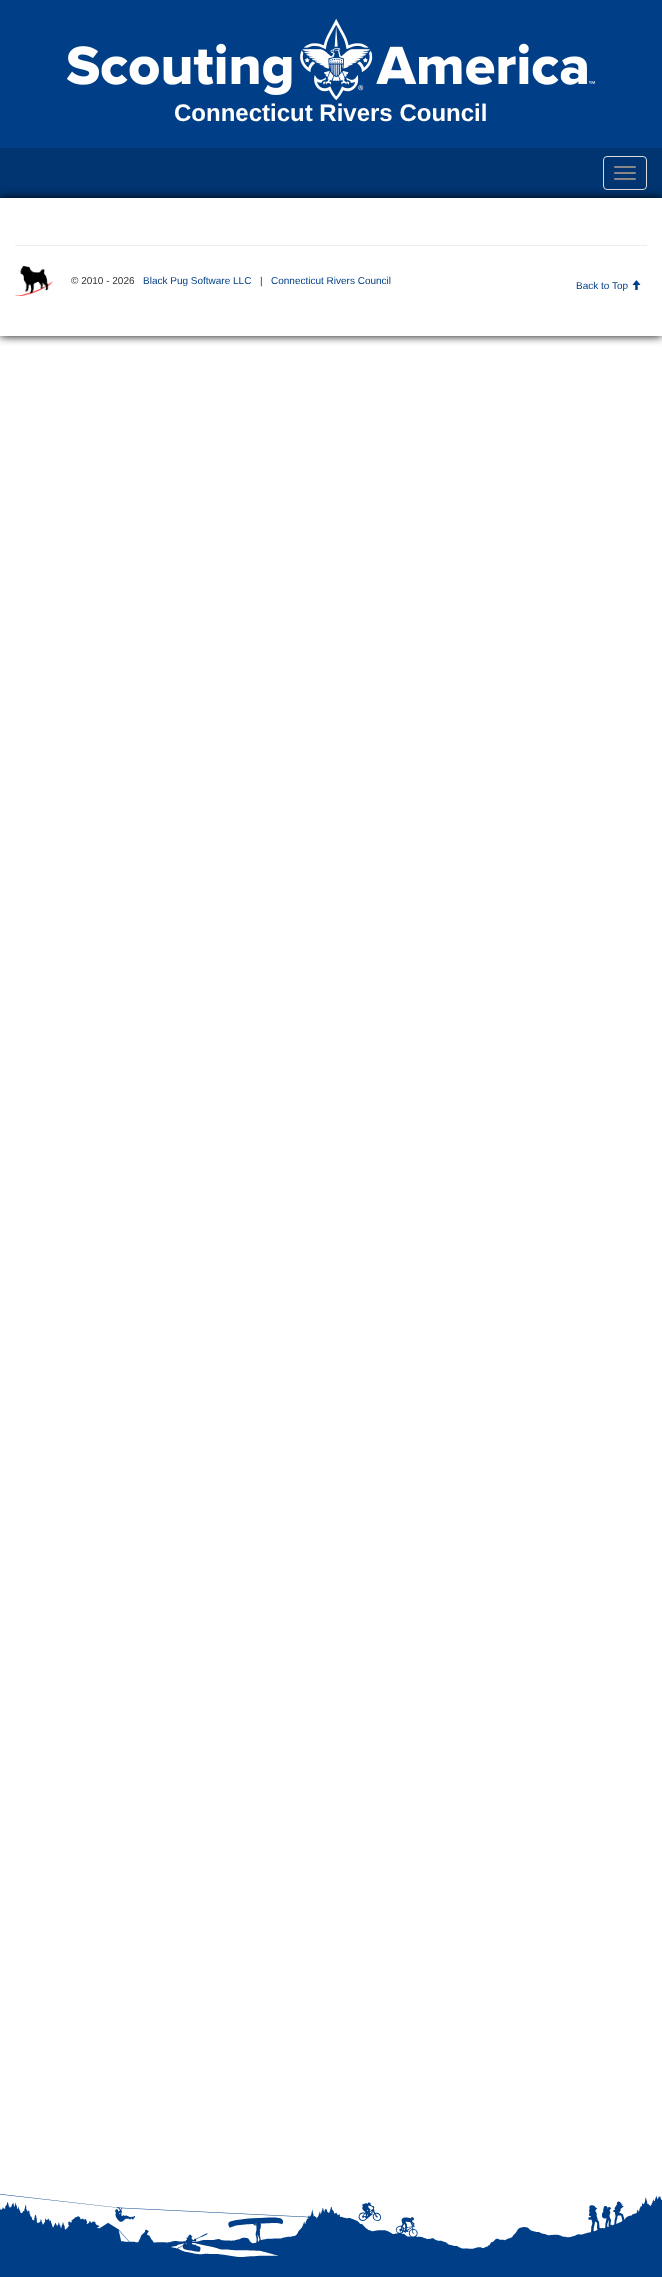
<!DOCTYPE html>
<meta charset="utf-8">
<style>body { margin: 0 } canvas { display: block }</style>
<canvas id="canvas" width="662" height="2277"></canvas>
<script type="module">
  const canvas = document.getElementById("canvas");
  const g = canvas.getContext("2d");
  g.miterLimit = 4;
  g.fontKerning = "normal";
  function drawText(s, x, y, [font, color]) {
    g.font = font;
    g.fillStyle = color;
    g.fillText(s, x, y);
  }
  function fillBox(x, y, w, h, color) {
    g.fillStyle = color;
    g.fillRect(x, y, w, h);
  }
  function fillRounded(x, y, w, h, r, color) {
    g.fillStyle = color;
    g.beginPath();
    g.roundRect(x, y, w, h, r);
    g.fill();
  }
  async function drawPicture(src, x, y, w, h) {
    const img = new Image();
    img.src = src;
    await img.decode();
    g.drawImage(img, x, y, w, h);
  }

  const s1 = ["bold 24px Liberation Sans", "#FFFFFF"];
  const s2 = ["10px Liberation Sans", "#333333"];
  const s3 = ["10px Liberation Sans", "#003F87"];

  fillBox(0, 0, 662, 2277, "#FFFFFF");
  fillBox(0, 0, 662, 148, "#003F87");
  await drawPicture("pic1.png", 67, 18, 529, 82);
  drawText("Connecticut Rivers Council", 174, 121, s1);
  fillBox(0, 148, 662, 50, "#003571");
  g.beginPath();
  g.roundRect(603.5, 156.5, 43, 33, 3.5);
  g.strokeStyle = "#DDDDDD";
  g.stroke();
  fillRounded(614, 166, 22, 2, 1, "#888888");
  fillRounded(614, 172, 22, 2, 1, "#888888");
  fillRounded(614, 178, 22, 2, 1, "#888888");
  g.save();
  g.beginPath();
  g.moveTo(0, 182);
  g.lineTo(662, 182);
  g.lineTo(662, 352);
  g.lineTo(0, 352);
  g.closePath();
  g.moveTo(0, 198);
  g.lineTo(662, 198);
  g.lineTo(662, 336);
  g.lineTo(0, 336);
  g.closePath();
  g.clip("evenodd");
  g.fillStyle = "#000000";
  g.filter = "blur(5px)";
  g.beginPath();
  g.rect(0, 198, 662, 138);
  g.fill();
  g.filter = "none";
  g.restore();
  fillBox(15, 245, 632, 1, "#EEEEEE");
  await drawPicture("pic2.png", 15, 266, 38, 30);
  drawText("© 2010 - 2026", 71, 284, s2);
  drawText("Black Pug Software LLC", 143, 284, s3);
  drawText("|", 260, 284, s2);
  drawText("Connecticut Rivers Council", 271, 284, s3);
  drawText("Back to Top", 576, 289, s3);
  await drawPicture("pic3.png", 632, 280, 9, 10);
  fillBox(0, 2194, 662, 83, "#003F87");
  await drawPicture("pic4.png", 0, 2184, 662, 73);
</script>
